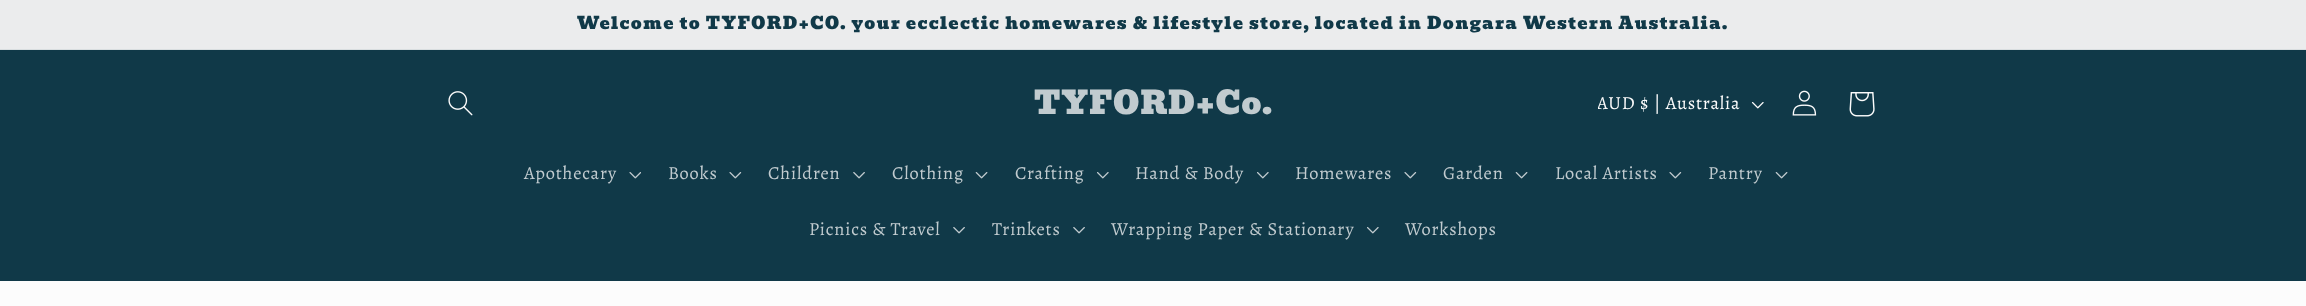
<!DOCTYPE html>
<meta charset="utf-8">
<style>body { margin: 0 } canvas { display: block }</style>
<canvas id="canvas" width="2306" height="306"></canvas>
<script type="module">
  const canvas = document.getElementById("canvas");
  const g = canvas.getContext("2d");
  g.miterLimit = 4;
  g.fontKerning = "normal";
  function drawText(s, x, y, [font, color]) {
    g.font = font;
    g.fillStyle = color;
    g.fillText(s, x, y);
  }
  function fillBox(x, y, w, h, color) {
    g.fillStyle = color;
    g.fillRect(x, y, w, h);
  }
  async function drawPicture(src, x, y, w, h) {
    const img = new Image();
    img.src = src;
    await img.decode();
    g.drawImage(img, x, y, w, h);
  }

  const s1 = ["17.05px Bevan", "#103948"];
  const s2 = ["31.5px Bevan", "#C1CBCF"];
  const s3 = ["18.4px Alegreya", "#FCFCFC"];
  const s4 = ["18.4px Alegreya", "#C1CBCF"];

  fillBox(0, 0, 2306, 306, "#FCFCFC");
  fillBox(0, 0, 2306, 49, "#EBECED");
  fillBox(0, 49, 2306, 1, "#D9DEE0");
  g.letterSpacing = "1.31px";
  drawText("Welcome to TYFORD+CO. your ecclectic homewares & lifestyle store, located in Dongara Western Australia.", 577, 29, s1);
  fillBox(0, 50, 2306, 231, "#103948");
  await drawPicture("pic1.png", 448, 91, 25, 25);
  g.letterSpacing = "0.8px";
  drawText("TYFORD+Co.", 1034, 114, s2);
  g.save();
  g.beginPath();
  g.rect(1598, 90, 142, 28);
  g.clip();
  drawText("AUD", 1597, 109, s3);
  g.restore();
  drawText("$ | Australia", 1640, 109, s3);
  await drawPicture("pic2.png", 1751, 102, 13, 7);
  await drawPicture("pic3.png", 1792, 90, 25, 26);
  await drawPicture("pic4.png", 1849, 92, 26, 25);
  drawText("Apothecary", 524, 179, s4);
  await drawPicture("pic5.png", 629, 172, 12, 7);
  drawText("Books", 668, 179, s4);
  await drawPicture("pic6.png", 729, 172, 13, 7);
  drawText("Children", 768, 179, s4);
  await drawPicture("pic7.png", 853, 172, 12, 7);
  drawText("Clothing", 892, 179, s4);
  await drawPicture("pic8.png", 975, 172, 13, 7);
  drawText("Crafting", 1015, 179, s4);
  await drawPicture("pic9.png", 1097, 172, 12, 7);
  drawText("Hand & Body", 1135, 179, s4);
  await drawPicture("pic9.png", 1257, 172, 12, 7);
  drawText("Homewares", 1295, 179, s4);
  await drawPicture("pic6.png", 1404, 172, 13, 7);
  drawText("Garden", 1443, 179, s4);
  await drawPicture("pic8.png", 1515, 172, 13, 7);
  drawText("Local Artists", 1555, 179, s4);
  await drawPicture("pic6.png", 1669, 172, 13, 7);
  drawText("Pantry", 1708, 179, s4);
  await drawPicture("pic8.png", 1775, 172, 13, 7);
  drawText("Picnics & Travel", 809, 235, s4);
  await drawPicture("pic7.png", 953, 227, 12, 7);
  drawText("Trinkets", 992, 235, s4);
  await drawPicture("pic7.png", 1073, 227, 12, 7);
  drawText("Wrapping Paper & Stationary", 1111, 235, s4);
  await drawPicture("pic9.png", 1367, 227, 12, 7);
  drawText("Workshops", 1405, 235, s4);
</script>
